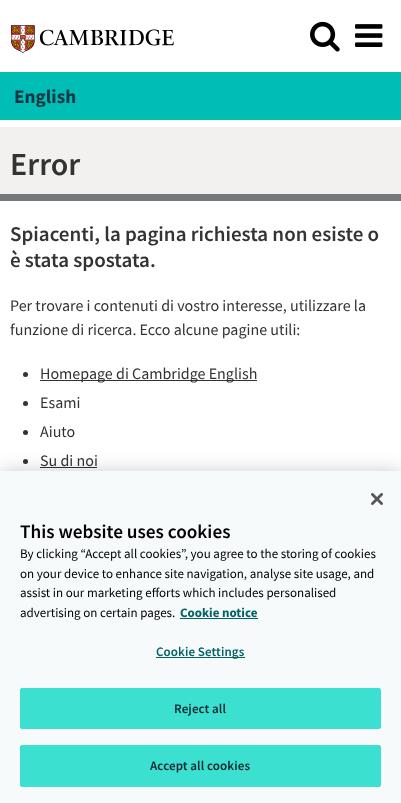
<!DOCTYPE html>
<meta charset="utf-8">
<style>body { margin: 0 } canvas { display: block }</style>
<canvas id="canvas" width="401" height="803"></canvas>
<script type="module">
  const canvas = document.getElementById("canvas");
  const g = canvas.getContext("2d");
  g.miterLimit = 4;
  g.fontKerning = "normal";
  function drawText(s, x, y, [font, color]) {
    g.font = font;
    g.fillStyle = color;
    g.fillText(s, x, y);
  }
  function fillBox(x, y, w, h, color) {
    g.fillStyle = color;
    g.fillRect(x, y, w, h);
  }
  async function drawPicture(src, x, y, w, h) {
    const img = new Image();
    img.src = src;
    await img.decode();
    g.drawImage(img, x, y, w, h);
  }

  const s1 = ["bold 19.25px Source Sans Pro", "#133844"];
  const s2 = ["600 32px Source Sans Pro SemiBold", "#333333"];
  const s3 = ["600 21px Source Sans Pro SemiBold", "#333333"];
  const s4 = ["16px Source Sans Pro", "#333333"];
  const s5 = ["600 19.25px Source Sans Pro SemiBold", "#000000"];
  const s6 = ["13px Source Sans Pro", "#000000"];
  const s7 = ["bold 13px Source Sans Pro", "#036268"];
  const s8 = ["600 13px Source Sans Pro SemiBold", "#036268"];
  const s9 = ["600 13px Source Sans Pro SemiBold", "#112730"];

  fillBox(0, 0, 401, 803, "#FFFFFF");
  await drawPicture("pic1.png", 11, 25, 163, 28);
  await drawPicture("pic2.png", 310, 21, 30, 31);
  await drawPicture("pic3.png", 355, 24, 28, 23);
  fillBox(0, 72, 401, 48, "#00BDB6");
  drawText("English", 14, 103, s1);
  fillBox(0, 127, 401, 67, "#F2F1F0");
  fillBox(0, 194, 401, 7, "#75787B");
  drawText("Error", 10, 175, s2);
  drawText("Spiacenti, la pagina richiesta non esiste o", 10, 241, s3);
  drawText("è stata spostata.", 10, 267, s3);
  drawText("Per trovare i contenuti di vostro interesse, utilizzare la", 10, 311, s4);
  drawText("funzione di ricerca. Ecco alcune pagine utili:", 10, 335, s4);
  g.beginPath();
  g.arc(25.5, 374.5, 2.5, 0, Math.PI * 2);
  g.fill();
  fillBox(40, 380, 217, 1, "#333333");
  drawText("Homepage di Cambridge English", 40, 379, s4);
  g.beginPath();
  g.arc(25.5, 403.5, 2.5, 0, Math.PI * 2);
  g.fill();
  drawText("Esami", 40, 408, s4);
  g.beginPath();
  g.arc(25.5, 432.5, 2.5, 0, Math.PI * 2);
  g.fill();
  drawText("Aiuto", 40, 437, s4);
  g.beginPath();
  g.arc(25.5, 461.5, 2.5, 0, Math.PI * 2);
  g.fill();
  drawText("Su di noi", 40, 466, s4);
  fillBox(40, 467, 57, 1, "#333333");
  g.fillStyle = "rgba(0, 0, 0, 0.2)";
  g.filter = "blur(9px)";
  g.beginPath();
  g.rect(0, 471, 401, 332);
  g.fill();
  g.filter = "none";
  fillBox(0, 471, 401, 332, "#F7FAFA");
  await drawPicture("pic4.png", 371, 493, 12, 12);
  drawText("This website uses cookies", 20, 538, s5);
  drawText("By clicking “Accept all cookies”, you agree to the storing of cookies", 20, 558, s6);
  drawText("on your device to enhance site navigation, analyse site usage, and", 20, 578, s6);
  drawText("assist in our marketing efforts which includes personalised", 20, 597, s6);
  drawText("advertising on certain pages.", 20, 617, s6);
  drawText("Cookie notice", 180, 617, s7);
  fillBox(180, 618, 78, 1, "#036268");
  fillBox(156, 657, 89, 1, "#036268");
  g.letterSpacing = "0.1px";
  drawText("Cookie Settings", 156, 656, s8);
  g.fillStyle = "#3BE0D0";
  g.beginPath();
  g.roundRect(20.5, 688.5, 360, 40, 1.5);
  g.fill();
  g.strokeStyle = "#3BE0D0";
  g.stroke();
  drawText("Reject all", 174, 713, s9);
  g.fillStyle = "#3BE0D0";
  g.beginPath();
  g.roundRect(20.5, 745.5, 360, 41, 1.5);
  g.fill();
  g.stroke();
  drawText("Accept all cookies", 150, 770, s9);
</script>
